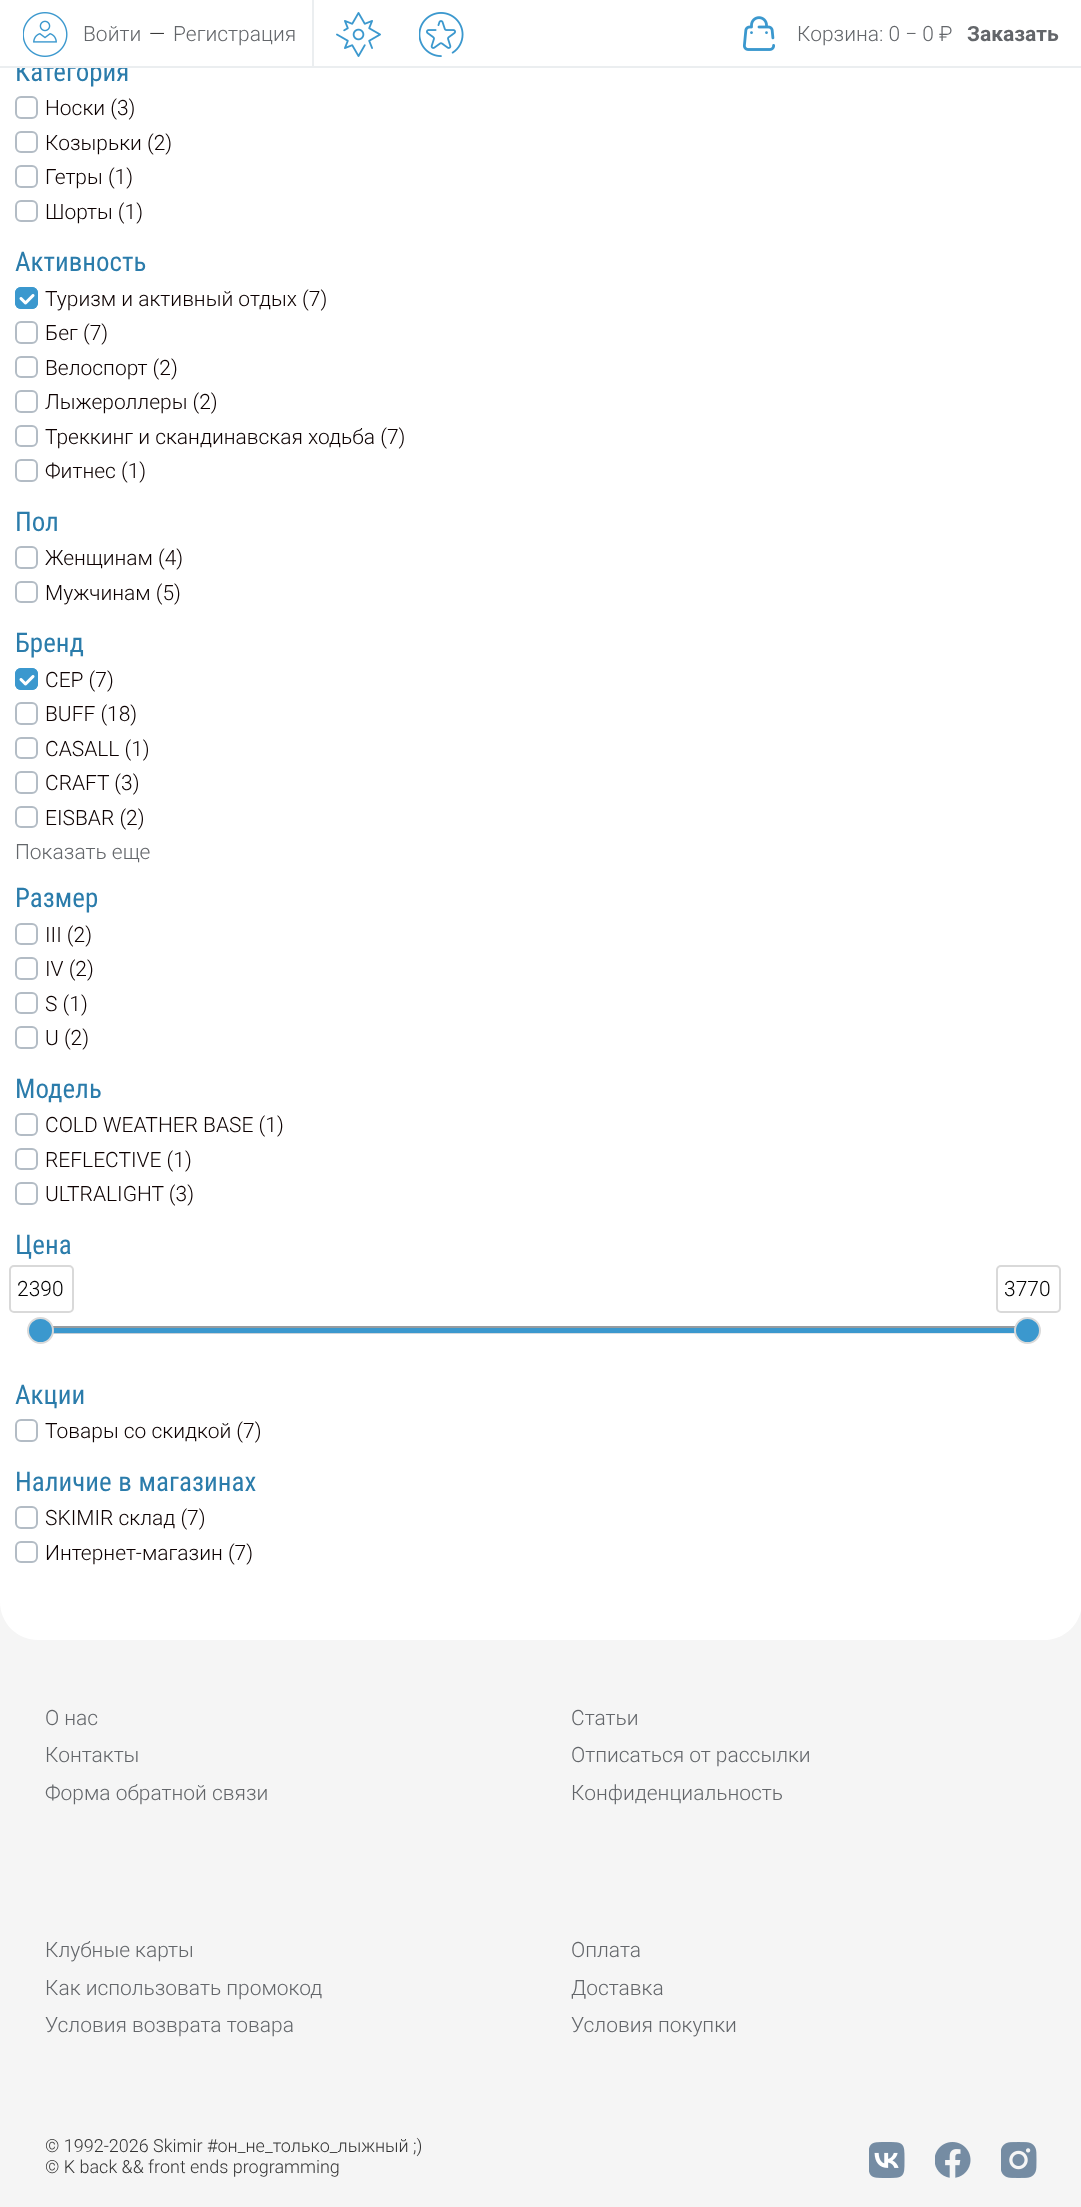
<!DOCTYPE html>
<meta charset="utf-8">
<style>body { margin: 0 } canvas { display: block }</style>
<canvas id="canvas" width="1081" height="2207"></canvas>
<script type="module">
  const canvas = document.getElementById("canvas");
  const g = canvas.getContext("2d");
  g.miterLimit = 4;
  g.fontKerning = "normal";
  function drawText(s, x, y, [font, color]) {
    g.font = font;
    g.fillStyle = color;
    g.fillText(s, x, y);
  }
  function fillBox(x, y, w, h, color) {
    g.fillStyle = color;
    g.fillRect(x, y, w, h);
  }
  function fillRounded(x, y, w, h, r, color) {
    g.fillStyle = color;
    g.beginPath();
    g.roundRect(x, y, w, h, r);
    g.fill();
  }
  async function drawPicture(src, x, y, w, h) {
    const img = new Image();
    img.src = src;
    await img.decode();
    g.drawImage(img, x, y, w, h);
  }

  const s1 = ["27px Roboto Condensed", "#2B7CAB"];
  const s2 = ["300 21px Roboto", "#63666A"];
  const s3 = ["300 21px Roboto", "#333333"];
  const s4 = ["bold 21px Roboto", "#63666A"];
  const s5 = ["300 21px Roboto", "#0C0000"];
  const s6 = ["300 21px Roboto", "#000000"];
  const s7 = ["300 18px Roboto", "#333333"];

  fillBox(0, 0, 1081, 2207, "#FFFFFF");
  drawText("Категория", 15, 81, s1);
  fillBox(17, 61, 13, 5, "#FFFFFF");
  fillBox(0, 66, 1081, 2, "#EBEEF0");
  fillBox(312, 0, 2, 68, "#EBEEF0");
  await drawPicture("pic1.png", 23, 12, 45, 45);
  drawText("Войти", 83, 41, s2);
  drawText("—", 149, 41, s3);
  drawText("Регистрация", 173, 41, s2);
  await drawPicture("pic2.png", 336, 12, 45, 45);
  await drawPicture("pic3.png", 419, 12, 45, 45);
  await drawPicture("pic4.png", 743, 16, 32, 35);
  drawText("Корзина: 0 − 0 ₽", 797, 41, s2);
  drawText("Заказать", 967, 41, s4);
  g.beginPath();
  g.roundRect(16, 97, 21, 21, 5);
  g.strokeStyle = "#B3BCC5";
  g.lineWidth = 2;
  g.stroke();
  drawText("Носки (3)", 45, 115, s5);
  g.beginPath();
  g.roundRect(16, 132, 21, 20, 5);
  g.stroke();
  drawText("Козырьки (2)", 45, 150, s5);
  g.beginPath();
  g.roundRect(16, 166, 21, 21, 5);
  g.stroke();
  drawText("Гетры (1)", 45, 184, s5);
  g.beginPath();
  g.roundRect(16, 201, 21, 20, 5);
  g.stroke();
  drawText("Шорты (1)", 45, 219, s5);
  drawText("Активность", 15, 271, s1);
  fillRounded(15, 287, 23, 22, 6, "#3B98CE");
  await drawPicture("pic5.png", 19, 294, 16, 11);
  g.beginPath();
  g.roundRect(16, 288, 21, 20, 5);
  g.strokeStyle = "#3B98CE";
  g.stroke();
  drawText("Туризм и активный отдых (7)", 45, 306, s5);
  g.beginPath();
  g.roundRect(16, 322, 21, 21, 5);
  g.strokeStyle = "#B3BCC5";
  g.stroke();
  drawText("Бег (7)", 45, 340, s5);
  g.beginPath();
  g.roundRect(16, 357, 21, 20, 5);
  g.stroke();
  drawText("Велоспорт (2)", 45, 375, s5);
  g.beginPath();
  g.roundRect(16, 391, 21, 21, 5);
  g.stroke();
  drawText("Лыжероллеры (2)", 45, 409, s5);
  g.beginPath();
  g.roundRect(16, 426, 21, 20, 5);
  g.stroke();
  drawText("Треккинг и скандинавская ходьба (7)", 45, 444, s5);
  g.beginPath();
  g.roundRect(16, 460, 21, 21, 5);
  g.stroke();
  drawText("Фитнес (1)", 45, 478, s5);
  drawText("Пол", 15, 531, s1);
  g.beginPath();
  g.roundRect(16, 547, 21, 21, 5);
  g.stroke();
  drawText("Женщинам (4)", 45, 565, s5);
  g.beginPath();
  g.roundRect(16, 582, 21, 20, 5);
  g.stroke();
  drawText("Мужчинам (5)", 45, 600, s5);
  drawText("Бренд", 15, 652, s1);
  fillRounded(15, 668, 23, 22, 6, "#3B98CE");
  await drawPicture("pic5.png", 19, 675, 16, 11);
  g.beginPath();
  g.roundRect(16, 669, 21, 20, 5);
  g.strokeStyle = "#3B98CE";
  g.stroke();
  drawText("CEP (7)", 45, 687, s5);
  g.beginPath();
  g.roundRect(16, 703, 21, 21, 5);
  g.strokeStyle = "#B3BCC5";
  g.stroke();
  drawText("BUFF (18)", 45, 721, s5);
  g.beginPath();
  g.roundRect(16, 738, 21, 20, 5);
  g.stroke();
  drawText("CASALL (1)", 45, 756, s5);
  g.beginPath();
  g.roundRect(16, 772, 21, 21, 5);
  g.stroke();
  drawText("CRAFT (3)", 45, 790, s5);
  g.beginPath();
  g.roundRect(16, 807, 21, 20, 5);
  g.stroke();
  drawText("EISBAR (2)", 45, 825, s5);
  drawText("Показать еще", 15, 859, s2);
  drawText("Размер", 15, 907, s1);
  g.beginPath();
  g.roundRect(16, 924, 21, 20, 5);
  g.stroke();
  drawText("III (2)", 45, 942, s5);
  g.beginPath();
  g.roundRect(16, 958, 21, 21, 5);
  g.stroke();
  drawText("IV (2)", 45, 976, s5);
  g.beginPath();
  g.roundRect(16, 993, 21, 20, 5);
  g.stroke();
  drawText("S (1)", 45, 1011, s5);
  g.beginPath();
  g.roundRect(16, 1027, 21, 21, 5);
  g.stroke();
  drawText("U (2)", 45, 1045, s5);
  drawText("Модель", 15, 1098, s1);
  g.beginPath();
  g.roundRect(16, 1114, 21, 21, 5);
  g.stroke();
  drawText("COLD WEATHER BASE (1)", 45, 1132, s5);
  g.beginPath();
  g.roundRect(16, 1149, 21, 20, 5);
  g.stroke();
  drawText("REFLECTIVE (1)", 45, 1167, s5);
  g.beginPath();
  g.roundRect(16, 1183, 21, 21, 5);
  g.stroke();
  drawText("ULTRALIGHT (3)", 45, 1201, s5);
  drawText("Цена", 15, 1254, s1);
  fillBox(53, 1326, 962, 8, "#FAFAFA");
  g.beginPath();
  g.moveTo(1027.5, 1327.5);
  g.bezierCurveTo(1029, 1329.5, 1028, 1332.5, 1025.5, 1332.5);
  g.lineTo(43, 1333);
  g.lineTo(40.5, 1332);
  g.lineWidth = 1.5;
  g.stroke();
  g.beginPath();
  g.moveTo(40.5, 1332);
  g.bezierCurveTo(39, 1330, 40, 1327, 42.5, 1327);
  g.lineTo(1025, 1327);
  g.lineTo(1027.5, 1327.5);
  g.strokeStyle = "#777D83";
  g.stroke();
  g.beginPath();
  g.roundRect(10, 1266, 63, 46, 4);
  g.strokeStyle = "#D9D9D9";
  g.lineWidth = 2;
  g.stroke();
  drawText("2390", 17, 1296, s6);
  fillBox(53, 1328, 962, 5, "#3B98CE");
  g.beginPath();
  g.arc(40.5, 1330.5, 12.5, 0, Math.PI * 2);
  g.fill();
  g.stroke();
  g.beginPath();
  g.roundRect(997, 1266, 63, 46, 4);
  g.stroke();
  drawText("3770", 1004, 1296, s6);
  g.fillStyle = "#3B98CE";
  g.beginPath();
  g.arc(1027.5, 1330.5, 12.5, 0, Math.PI * 2);
  g.fill();
  g.stroke();
  drawText("Акции", 15, 1404, s1);
  g.beginPath();
  g.roundRect(16, 1420, 21, 21, 5);
  g.strokeStyle = "#B3BCC5";
  g.stroke();
  drawText("Товары со скидкой (7)", 45, 1438, s5);
  drawText("Наличие в магазинах", 15, 1491, s1);
  g.beginPath();
  g.roundRect(16, 1507, 21, 21, 5);
  g.stroke();
  drawText("SKIMIR склад (7)", 45, 1525, s5);
  g.beginPath();
  g.roundRect(16, 1542, 21, 20, 5);
  g.stroke();
  drawText("Интернет-магазин (7)", 45, 1560, s5);
  fillBox(0, 1602, 1081, 605, "#F5F5F5");
  g.fillStyle = "#FFFFFF";
  g.beginPath();
  g.moveTo(0, 1572);
  g.lineTo(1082, 1572);
  g.lineTo(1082, 1602);
  g.bezierCurveTo(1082, 1623, 1065, 1640, 1044, 1640);
  g.lineTo(38, 1640);
  g.bezierCurveTo(17, 1640, 0, 1623, 0, 1602);
  g.closePath();
  g.fill();
  drawText("О нас", 45, 1725, s2);
  drawText("Контакты", 45, 1762, s2);
  drawText("Форма обратной связи", 45, 1800, s2);
  drawText("Статьи", 571, 1725, s2);
  drawText("Отписаться от рассылки", 571, 1762, s2);
  drawText("Конфиденциальность", 571, 1800, s2);
  drawText("Клубные карты", 45, 1957, s2);
  drawText("Как использовать промокод", 45, 1995, s2);
  drawText("Условия возврата товара", 45, 2032, s2);
  drawText("Оплата", 571, 1957, s2);
  drawText("Доставка", 571, 1995, s2);
  drawText("Условия покупки", 571, 2032, s2);
  drawText("© 1992-2026 Skimir #он_не_только_лыжный ;)", 45, 2152, s7);
  drawText("© K back && front ends programming", 45, 2173, s7);
  await drawPicture("pic6.png", 869, 2142, 36, 36);
  await drawPicture("pic7.png", 935, 2142, 36, 36);
  await drawPicture("pic8.png", 1001, 2142, 36, 36);
</script>
